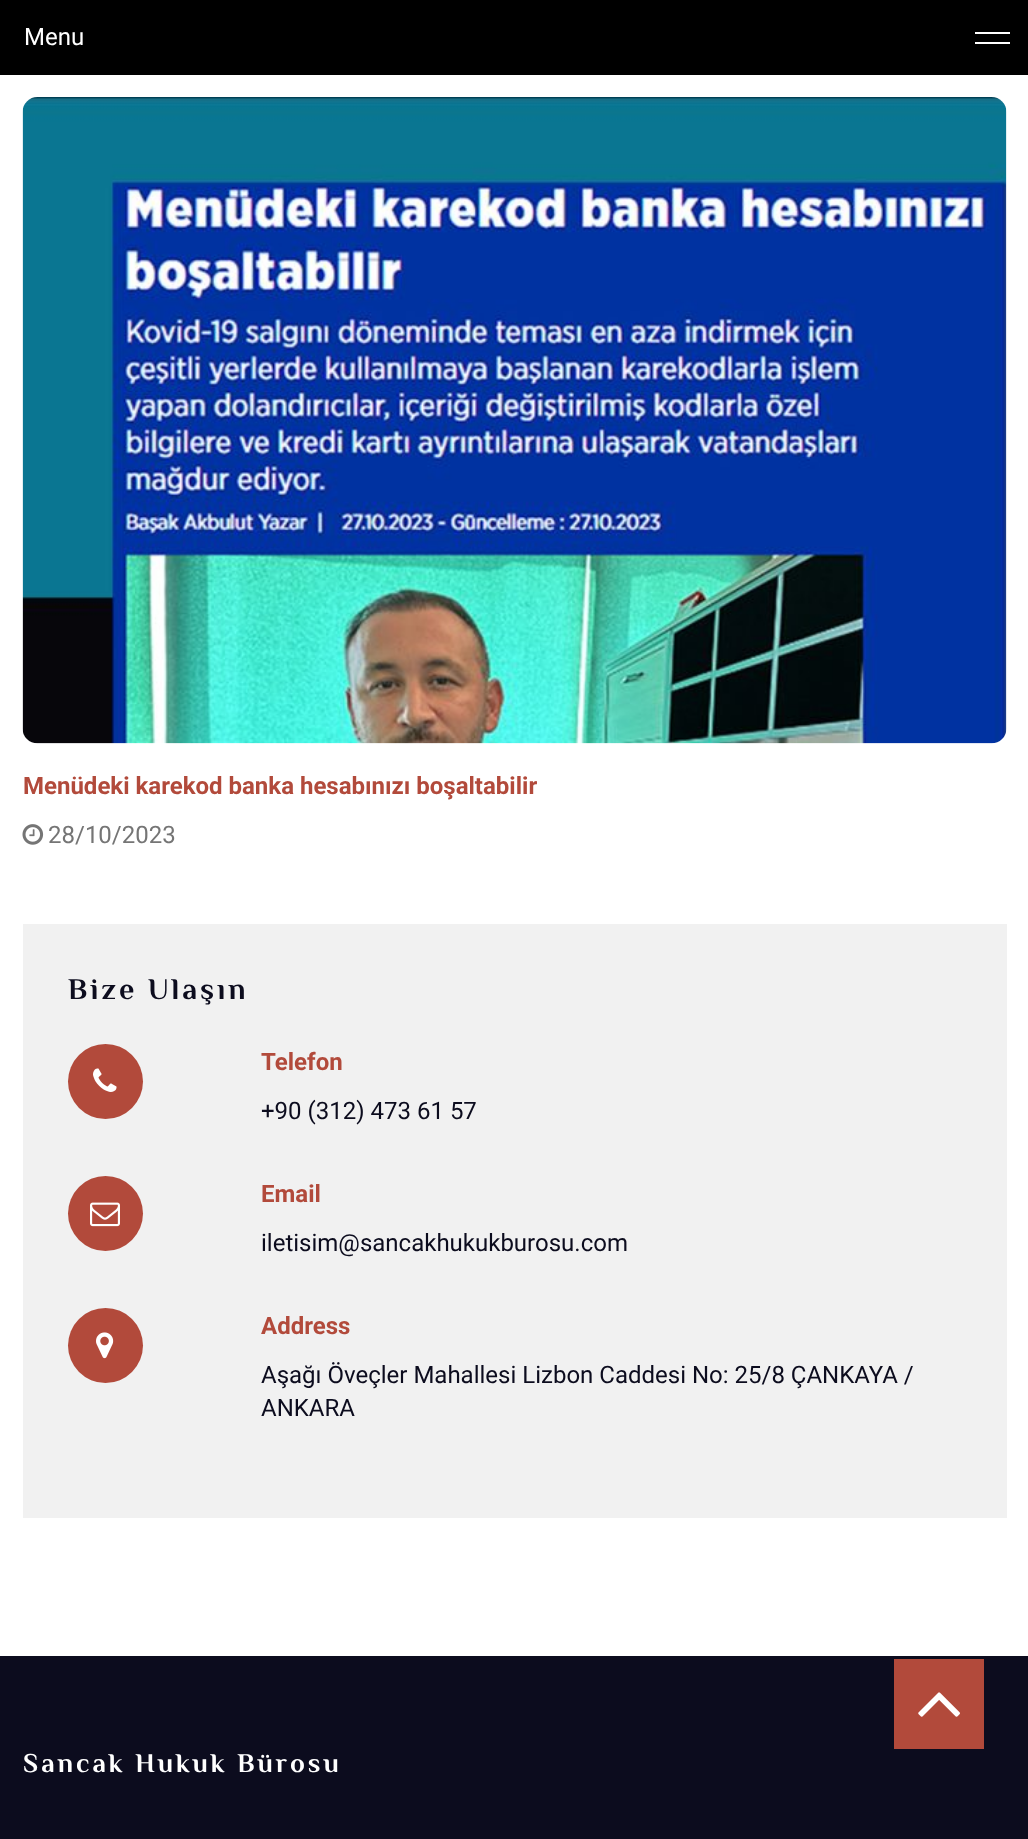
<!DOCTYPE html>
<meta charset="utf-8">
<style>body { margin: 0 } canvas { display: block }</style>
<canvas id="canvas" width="1028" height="1839"></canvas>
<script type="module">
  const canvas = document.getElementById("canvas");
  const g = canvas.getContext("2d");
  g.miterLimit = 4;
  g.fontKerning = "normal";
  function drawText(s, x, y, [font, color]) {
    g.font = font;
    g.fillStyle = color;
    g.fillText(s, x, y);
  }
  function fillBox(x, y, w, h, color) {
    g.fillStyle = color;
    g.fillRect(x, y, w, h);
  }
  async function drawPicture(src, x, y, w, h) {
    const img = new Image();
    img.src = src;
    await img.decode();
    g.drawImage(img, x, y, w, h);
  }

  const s1 = ["24px Roboto", "#FFFFFF"];
  const s2 = ["bold 24px Roboto", "#B24A3B"];
  const s3 = ["24px Roboto", "#757575"];
  const s4 = ["bold 30px Philosopher", "#0C0C1E"];
  const s5 = ["24px Roboto", "#0C0C1E"];
  const s6 = ["bold 27px Philosopher", "#FFFFFF"];

  fillBox(0, 0, 1028, 1839, "#FFFFFF");
  fillBox(0, 0, 1028, 75, "#000000");
  drawText("Menu", 24, 45, s1);
  fillBox(975, 32, 35, 2, "#FFFFFF");
  fillBox(975, 42, 35, 2, "#FFFFFF");
  await drawPicture("pic1.png", 22, 97, 985, 647);
  drawText("Menüdeki karekod banka hesabınızı boşaltabilir", 23, 794, s2);
  await drawPicture("pic2.png", 22, 824, 22, 21);
  drawText("28/10/2023", 48, 843, s3);
  fillBox(23, 924, 984, 594, "#F1F1F1");
  g.letterSpacing = "3px";
  drawText("Bize Ulaşın", 68, 999, s4);
  g.fillStyle = "#B24A3B";
  g.beginPath();
  g.arc(105.5, 1081.5, 37.5, 0, Math.PI * 2);
  g.fill();
  await drawPicture("pic3.png", 93, 1068, 24, 24);
  g.letterSpacing = "0px";
  drawText("Telefon", 261, 1070, s2);
  drawText("+90 (312) 473 61 57", 261, 1119, s5);
  g.fillStyle = "#B24A3B";
  g.beginPath();
  g.arc(105.5, 1213.5, 37.5, 0, Math.PI * 2);
  g.fill();
  await drawPicture("pic4.png", 90, 1202, 30, 25);
  drawText("Email", 261, 1202, s2);
  drawText("iletisim@sancakhukukburosu.com", 261, 1251, s5);
  g.fillStyle = "#B24A3B";
  g.beginPath();
  g.arc(105.5, 1345.5, 37.5, 0, Math.PI * 2);
  g.fill();
  await drawPicture("pic5.png", 96, 1332, 18, 27);
  drawText("Address", 261, 1334, s2);
  drawText("Aşağı Öveçler Mahallesi Lizbon Caddesi No: 25/8 ÇANKAYA /", 261, 1383, s5);
  drawText("ANKARA", 261, 1416, s5);
  fillBox(0, 1656, 1028, 183, "#0C0C1E");
  g.letterSpacing = "3px";
  drawText("Sancak Hukuk Bürosu", 23, 1772, s6);
  fillBox(894, 1659, 90, 90, "#B24A3B");
  await drawPicture("pic6.png", 918, 1692, 42, 25);
</script>
